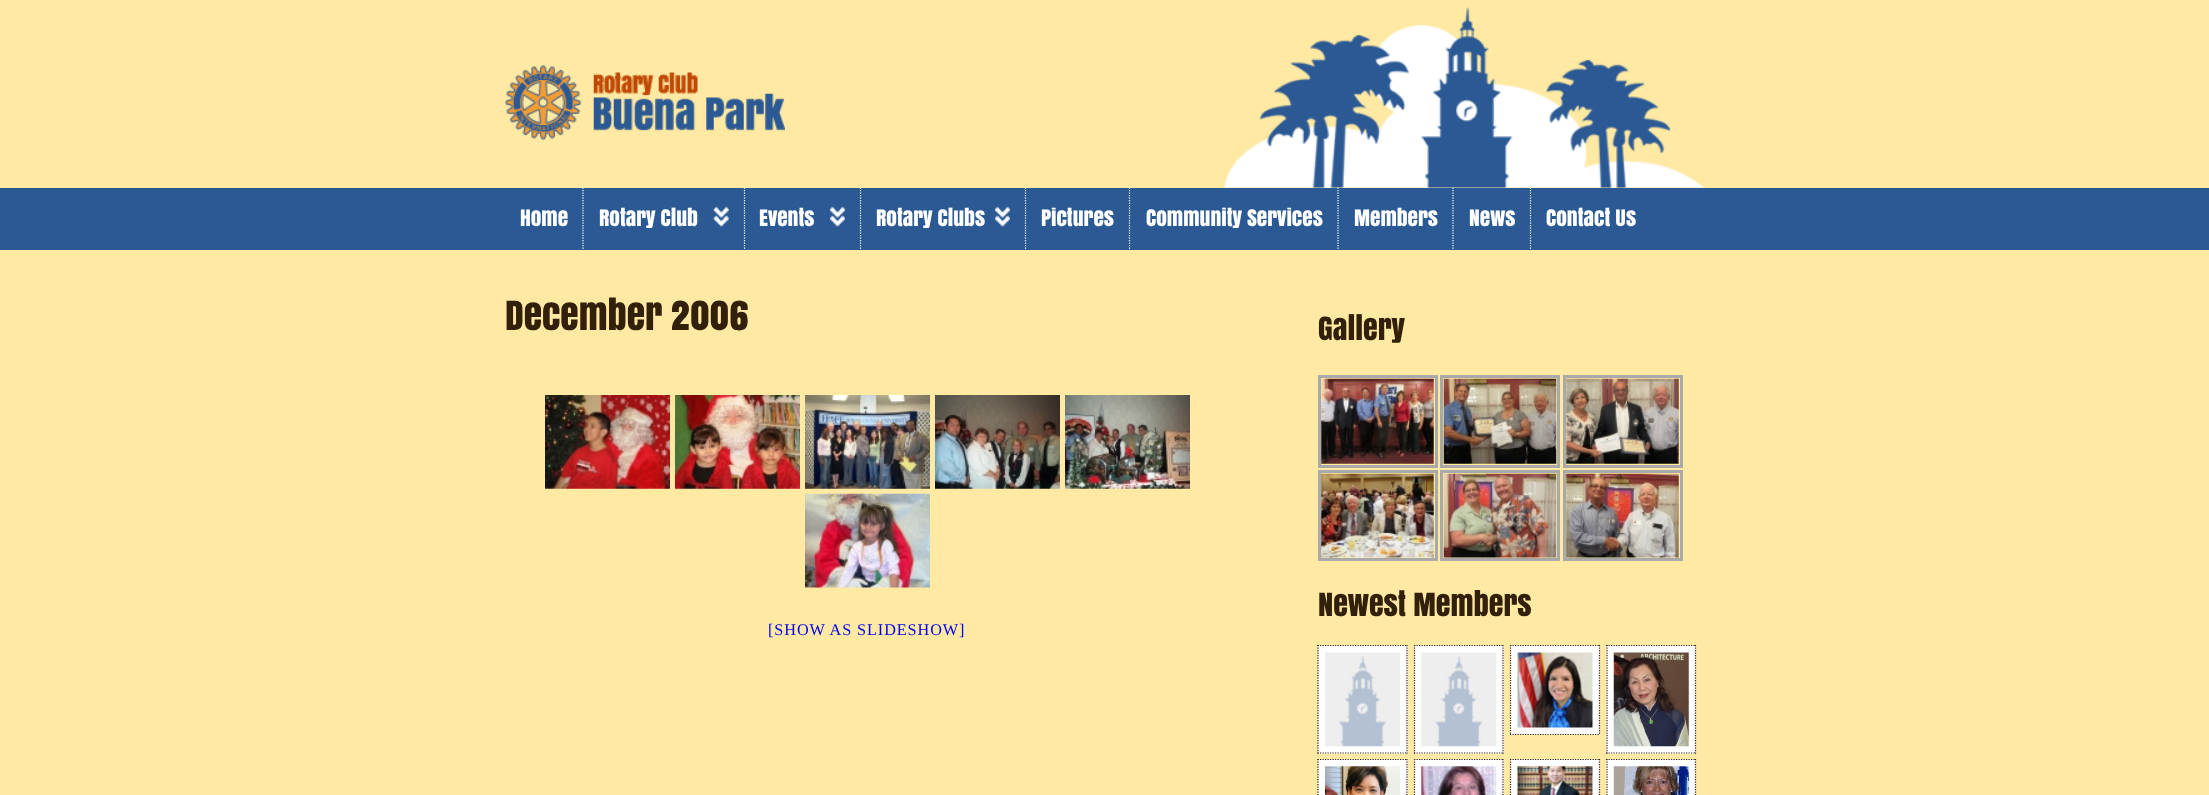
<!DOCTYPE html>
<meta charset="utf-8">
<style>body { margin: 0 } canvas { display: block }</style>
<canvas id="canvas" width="2209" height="795"></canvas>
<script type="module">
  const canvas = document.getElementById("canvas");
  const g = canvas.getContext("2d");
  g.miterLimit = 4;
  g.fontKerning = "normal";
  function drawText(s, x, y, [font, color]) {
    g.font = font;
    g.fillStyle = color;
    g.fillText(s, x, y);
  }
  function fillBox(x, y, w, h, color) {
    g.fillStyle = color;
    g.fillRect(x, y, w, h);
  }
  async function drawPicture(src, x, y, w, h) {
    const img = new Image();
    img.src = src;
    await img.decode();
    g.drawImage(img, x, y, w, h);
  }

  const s1 = ["21.25px Anton", "#FFFFFF"];
  const s2 = ["37.5px Anton", "#33200B"];
  const s3 = ["16.25px Liberation Serif", "#0000EE"];
  const s4 = ["30px Anton", "#33200B"];

  fillBox(0, 0, 2209, 795, "#FFE9A3");
  await drawPicture("pic1.png", 1223, 7, 481, 181);
  await drawPicture("pic2.png", 505, 65, 280, 75);
  fillBox(0, 188, 2209, 62, "#2B5994");
  g.beginPath();
  g.moveTo(583, 187.5);
  g.lineTo(583, 250);
  g.strokeStyle = "#FFFFFF";
  g.lineWidth = 1.2;
  g.setLineDash([1.25, 1.25]);
  g.stroke();
  drawText("Home", 520, 226, s1);
  g.beginPath();
  g.moveTo(744.5, 187.5);
  g.lineTo(744.5, 250);
  g.stroke();
  drawText("Rotary Club", 599, 226, s1);
  await drawPicture("pic3.png", 713, 206, 16, 21);
  g.beginPath();
  g.moveTo(860.5, 187.5);
  g.lineTo(860.5, 250);
  g.stroke();
  drawText("Events", 759, 226, s1);
  await drawPicture("pic4.png", 830, 206, 15, 21);
  g.beginPath();
  g.moveTo(1025.5, 187.5);
  g.lineTo(1025.5, 250);
  g.stroke();
  drawText("Rotary Clubs", 876, 226, s1);
  await drawPicture("pic4.png", 995, 206, 15, 21);
  g.beginPath();
  g.moveTo(1129.5, 187.5);
  g.lineTo(1129.5, 250);
  g.stroke();
  drawText("Pictures", 1041, 226, s1);
  g.beginPath();
  g.moveTo(1338, 187.5);
  g.lineTo(1338, 250);
  g.stroke();
  drawText("Community Services", 1146, 226, s1);
  g.beginPath();
  g.moveTo(1453, 187.5);
  g.lineTo(1453, 250);
  g.stroke();
  drawText("Members", 1354, 226, s1);
  g.beginPath();
  g.moveTo(1530.5, 187.5);
  g.lineTo(1530.5, 250);
  g.stroke();
  drawText("News", 1469, 226, s1);
  drawText("Contact Us", 1546, 226, s1);
  drawText("December 2006", 505, 330, s2);
  await drawPicture("pic5.png", 545, 395, 125, 94);
  await drawPicture("pic6.png", 675, 395, 125, 94);
  await drawPicture("pic7.png", 805, 395, 125, 94);
  await drawPicture("pic8.png", 935, 395, 125, 94);
  await drawPicture("pic9.png", 1065, 395, 125, 94);
  await drawPicture("pic10.png", 805, 493, 125, 95);
  g.letterSpacing = "0.9px";
  drawText("[SHOW AS SLIDESHOW]", 768, 635, s3);
  g.letterSpacing = "0px";
  drawText("Gallery", 1318, 340, s4);
  g.strokeStyle = "#A9A9A9";
  g.lineWidth = 3;
  g.setLineDash([]);
  g.strokeRect(1319.5, 376.5, 117, 90);
  await drawPicture("pic11.png", 1321, 378, 113, 86);
  g.strokeRect(1441.5, 376.5, 117, 90);
  await drawPicture("pic12.png", 1443, 378, 114, 86);
  g.strokeRect(1564.5, 376.5, 117, 90);
  await drawPicture("pic13.png", 1566, 378, 113, 86);
  g.strokeRect(1319.5, 471.5, 117, 88);
  await drawPicture("pic14.png", 1321, 473, 113, 85);
  g.strokeRect(1441.5, 471.5, 117, 88);
  await drawPicture("pic15.png", 1443, 473, 114, 85);
  g.strokeRect(1564.5, 471.5, 117, 88);
  await drawPicture("pic16.png", 1566, 473, 113, 85);
  drawText("Newest Members", 1318, 616, s4);
  fillBox(1318, 645, 90, 109, "#FFFFFF");
  g.beginPath();
  g.moveTo(1317.5, 645.5);
  g.lineTo(1407.5, 645.5);
  g.strokeStyle = "#33220B";
  g.lineWidth = 1.2;
  g.setLineDash([1.25, 1.25]);
  g.stroke();
  g.beginPath();
  g.moveTo(1407, 645);
  g.lineTo(1407, 754);
  g.stroke();
  g.beginPath();
  g.moveTo(1317.5, 753);
  g.lineTo(1407.5, 753);
  g.stroke();
  g.beginPath();
  g.moveTo(1318, 645);
  g.lineTo(1318, 754);
  g.stroke();
  await drawPicture("pic17.png", 1325, 652, 75, 95);
  fillBox(1414, 645, 90, 109, "#FFFFFF");
  g.beginPath();
  g.moveTo(1414, 645.5);
  g.lineTo(1504, 645.5);
  g.stroke();
  g.beginPath();
  g.moveTo(1503, 645);
  g.lineTo(1503, 754);
  g.stroke();
  g.beginPath();
  g.moveTo(1414, 753);
  g.lineTo(1504, 753);
  g.stroke();
  g.beginPath();
  g.moveTo(1414.5, 645);
  g.lineTo(1414.5, 754);
  g.stroke();
  await drawPicture("pic18.png", 1421, 652, 76, 95);
  fillBox(1510, 645, 90, 90, "#FFFFFF");
  g.beginPath();
  g.moveTo(1510, 645.5);
  g.lineTo(1600, 645.5);
  g.stroke();
  g.beginPath();
  g.moveTo(1599.5, 645);
  g.lineTo(1599.5, 735);
  g.stroke();
  g.beginPath();
  g.moveTo(1510, 734.5);
  g.lineTo(1600, 734.5);
  g.stroke();
  g.beginPath();
  g.moveTo(1510.5, 645);
  g.lineTo(1510.5, 735);
  g.stroke();
  await drawPicture("pic19.png", 1517, 652, 76, 76);
  fillBox(1606, 645, 90, 109, "#FFFFFF");
  g.beginPath();
  g.moveTo(1606, 645.5);
  g.lineTo(1696, 645.5);
  g.stroke();
  g.beginPath();
  g.moveTo(1695.5, 645);
  g.lineTo(1695.5, 754);
  g.stroke();
  g.beginPath();
  g.moveTo(1606, 753);
  g.lineTo(1696, 753);
  g.stroke();
  g.beginPath();
  g.moveTo(1607, 645);
  g.lineTo(1607, 754);
  g.stroke();
  await drawPicture("pic20.png", 1613, 652, 76, 95);
  fillBox(1318, 759, 90, 36, "#FFFFFF");
  g.beginPath();
  g.moveTo(1317.5, 759.5);
  g.lineTo(1407.5, 759.5);
  g.stroke();
  g.beginPath();
  g.moveTo(1318, 759);
  g.lineTo(1318, 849);
  g.stroke();
  await drawPicture("pic21.png", 1325, 766, 75, 29);
  g.beginPath();
  g.moveTo(1407, 759);
  g.lineTo(1407, 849);
  g.stroke();
  fillBox(1414, 759, 90, 36, "#FFFFFF");
  g.beginPath();
  g.moveTo(1414, 759.5);
  g.lineTo(1504, 759.5);
  g.stroke();
  g.beginPath();
  g.moveTo(1414.5, 759);
  g.lineTo(1414.5, 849);
  g.stroke();
  await drawPicture("pic22.png", 1421, 766, 76, 29);
  g.beginPath();
  g.moveTo(1503, 759);
  g.lineTo(1503, 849);
  g.stroke();
  fillBox(1510, 759, 90, 36, "#FFFFFF");
  g.beginPath();
  g.moveTo(1510, 759.5);
  g.lineTo(1600, 759.5);
  g.stroke();
  g.beginPath();
  g.moveTo(1510.5, 759);
  g.lineTo(1510.5, 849);
  g.stroke();
  await drawPicture("pic23.png", 1517, 766, 76, 29);
  g.beginPath();
  g.moveTo(1599.5, 759);
  g.lineTo(1599.5, 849);
  g.stroke();
  fillBox(1606, 759, 90, 36, "#FFFFFF");
  g.beginPath();
  g.moveTo(1606, 759.5);
  g.lineTo(1696, 759.5);
  g.stroke();
  g.beginPath();
  g.moveTo(1607, 759);
  g.lineTo(1607, 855);
  g.stroke();
  await drawPicture("pic24.png", 1613, 766, 76, 29);
  g.beginPath();
  g.moveTo(1695.5, 759);
  g.lineTo(1695.5, 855);
  g.stroke();
</script>
